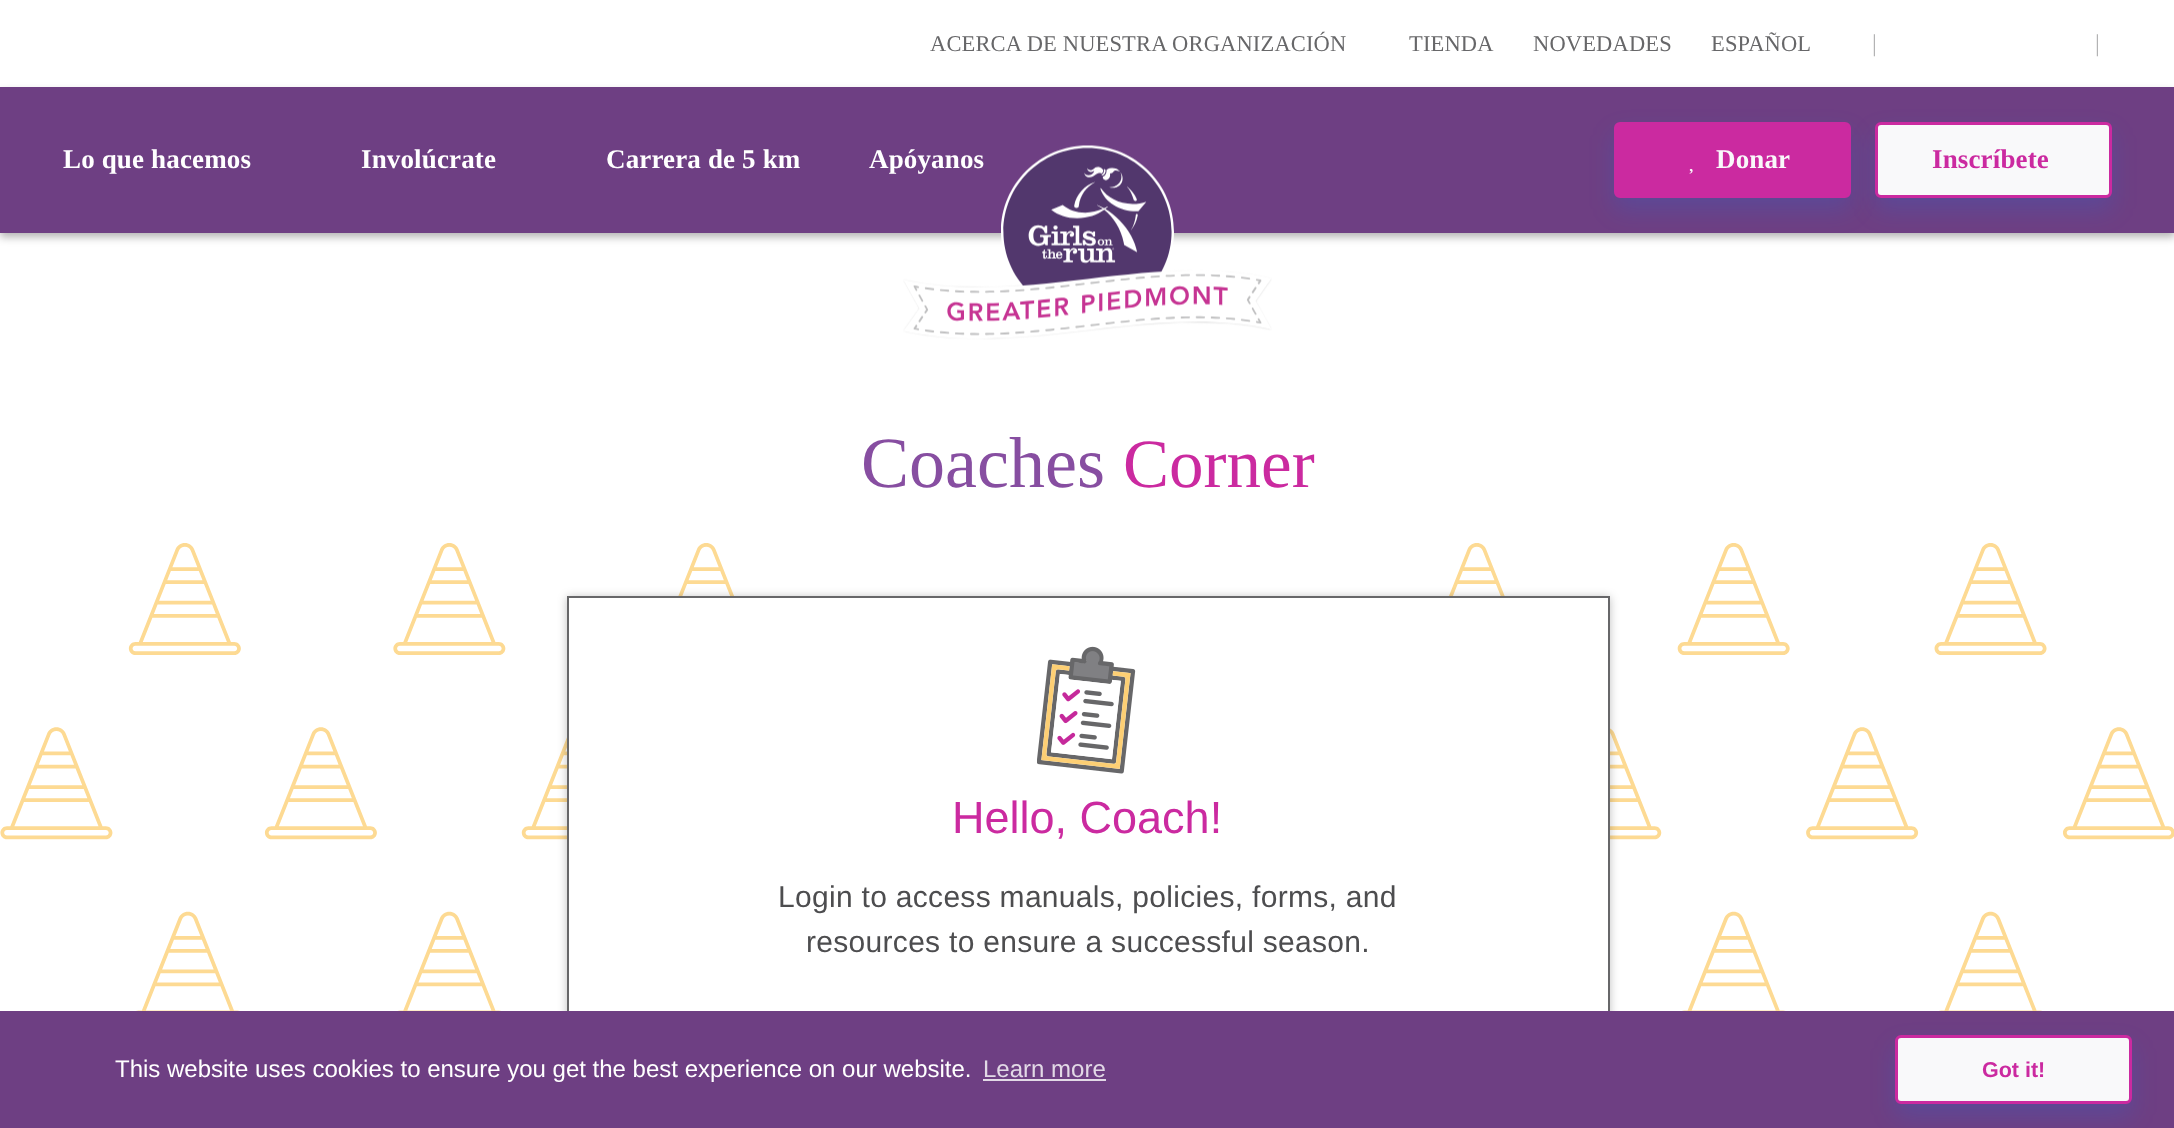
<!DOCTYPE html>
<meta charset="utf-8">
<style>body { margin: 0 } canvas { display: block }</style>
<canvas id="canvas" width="2174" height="1128"></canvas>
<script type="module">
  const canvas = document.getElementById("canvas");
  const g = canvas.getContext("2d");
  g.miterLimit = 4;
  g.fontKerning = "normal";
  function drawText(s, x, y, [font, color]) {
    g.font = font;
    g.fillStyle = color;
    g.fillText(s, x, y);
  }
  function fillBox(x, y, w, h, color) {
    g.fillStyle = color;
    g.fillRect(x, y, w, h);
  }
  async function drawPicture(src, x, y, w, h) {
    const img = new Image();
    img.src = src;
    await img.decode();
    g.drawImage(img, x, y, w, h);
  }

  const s1 = ["22.5px Liberation Serif", "#676769"];
  const s2 = ["24px Liberation Serif", "#B3B3B4"];
  const s3 = ["bold 27px Liberation Serif", "#FFFFFF"];
  const s4 = ["bold 27px Liberation Serif", "#F9F9FA"];
  const s5 = ["bold 27px Liberation Serif", "#CB2AA0"];
  const s6 = ["72px Liberation Serif", "#874EA1"];
  const s7 = ["69px Liberation Serif", "#CB2AA0"];
  const s8 = ["45px Liberation Sans", "#CB2AA0"];
  const s9 = ["30px Liberation Sans", "#4D4D4F"];
  const s10 = ["24px Liberation Sans", "#FFFFFF"];
  const s11 = ["24px Liberation Sans", "#E2D9E6"];
  const s12 = ["bold 21.5px Liberation Sans", "#CB2AA0"];

  fillBox(0, 0, 2174, 1128, "#FFFFFF");
  g.letterSpacing = "0.15px";
  drawText("ACERCA DE NUESTRA ORGANIZACIÓN", 930, 51, s1);
  drawText("TIENDA", 1409, 51, s1);
  drawText("NOVEDADES", 1533, 51, s1);
  drawText("ESPAÑOL", 1711, 51, s1);
  g.letterSpacing = "0px";
  drawText("|", 1872, 51, s2);
  drawText("|", 2095, 51, s2);
  g.fillStyle = "rgba(0, 0, 0, 0.3)";
  g.filter = "blur(4px)";
  g.beginPath();
  g.rect(0, 92, 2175, 145);
  g.fill();
  g.filter = "none";
  fillBox(0, 87, 2174, 146, "#6E3F83");
  g.letterSpacing = "0.15px";
  drawText("Apóyanos", 869, 168, s3);
  await drawPicture("pic1.png", 903, 145, 369, 195);
  drawText("Lo que hacemos", 63, 168, s3);
  drawText("Involúcrate", 361, 168, s3);
  drawText("Carrera de 5 km", 606, 168, s3);
  g.fillStyle = "rgba(0, 126, 255, 0.16)";
  g.filter = "blur(12px)";
  g.beginPath();
  g.roundRect(1614, 134, 237, 76, 6);
  g.fill();
  g.filter = "none";
  g.fillStyle = "#CB2AA0";
  g.beginPath();
  g.roundRect(1615.5, 123.5, 234, 73, 4.5);
  g.fill();
  g.strokeStyle = "#CB2AA0";
  g.lineWidth = 3;
  g.stroke();
  drawText("Donar", 1716, 168, s4);
  await drawPicture("pic2.png", 1689, 168, 4, 6);
  g.fillStyle = "rgba(0, 126, 255, 0.16)";
  g.filter = "blur(12px)";
  g.beginPath();
  g.roundRect(1875, 134, 237, 76, 6);
  g.fill();
  g.filter = "none";
  g.fillStyle = "#F9F9FA";
  g.beginPath();
  g.roundRect(1876.5, 123.5, 234, 73, 4.5);
  g.fill();
  g.stroke();
  drawText("Inscríbete", 1932, 168, s5);
  g.letterSpacing = "0px";
  drawText("Coaches", 861, 487, s6);
  drawText("Corner", 1123, 487, s7);
  await drawPicture("pic3.png", 0, 543, 2174, 468);
  g.fillStyle = "rgba(0, 0, 0, 0.25)";
  g.filter = "blur(5px)";
  g.beginPath();
  g.rect(567, 597, 1043, 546);
  g.fill();
  g.filter = "none";
  fillBox(569, 598, 1039, 413, "#FFFFFF");
  g.strokeStyle = "#676769";
  g.lineWidth = 2;
  g.strokeRect(568, 597, 1041, 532);
  await drawPicture("pic4.png", 1037, 646, 99, 128);
  drawText("Hello, Coach!", 952, 833, s8);
  g.letterSpacing = "0.3px";
  drawText("Login to access manuals, policies, forms, and", 778, 907, s9);
  drawText("resources to ensure a successful season.", 806, 952, s9);
  fillBox(0, 1011, 2174, 117, "#6E3F83");
  g.letterSpacing = "0px";
  drawText("This website uses cookies to ensure you get the best experience on our website.", 115, 1077, s10);
  drawText("Learn more", 983, 1077, s11);
  fillBox(983, 1079, 123, 2, "#E2D9E6");
  g.fillStyle = "rgba(0, 126, 255, 0.16)";
  g.filter = "blur(12px)";
  g.beginPath();
  g.roundRect(1895, 1047, 237, 69, 6);
  g.fill();
  g.filter = "none";
  g.fillStyle = "#F9F9FA";
  g.beginPath();
  g.roundRect(1896.5, 1036.5, 234, 66, 4.5);
  g.fill();
  g.strokeStyle = "#CB2AA0";
  g.lineWidth = 3;
  g.stroke();
  drawText("Got it!", 1982, 1077, s12);
</script>
